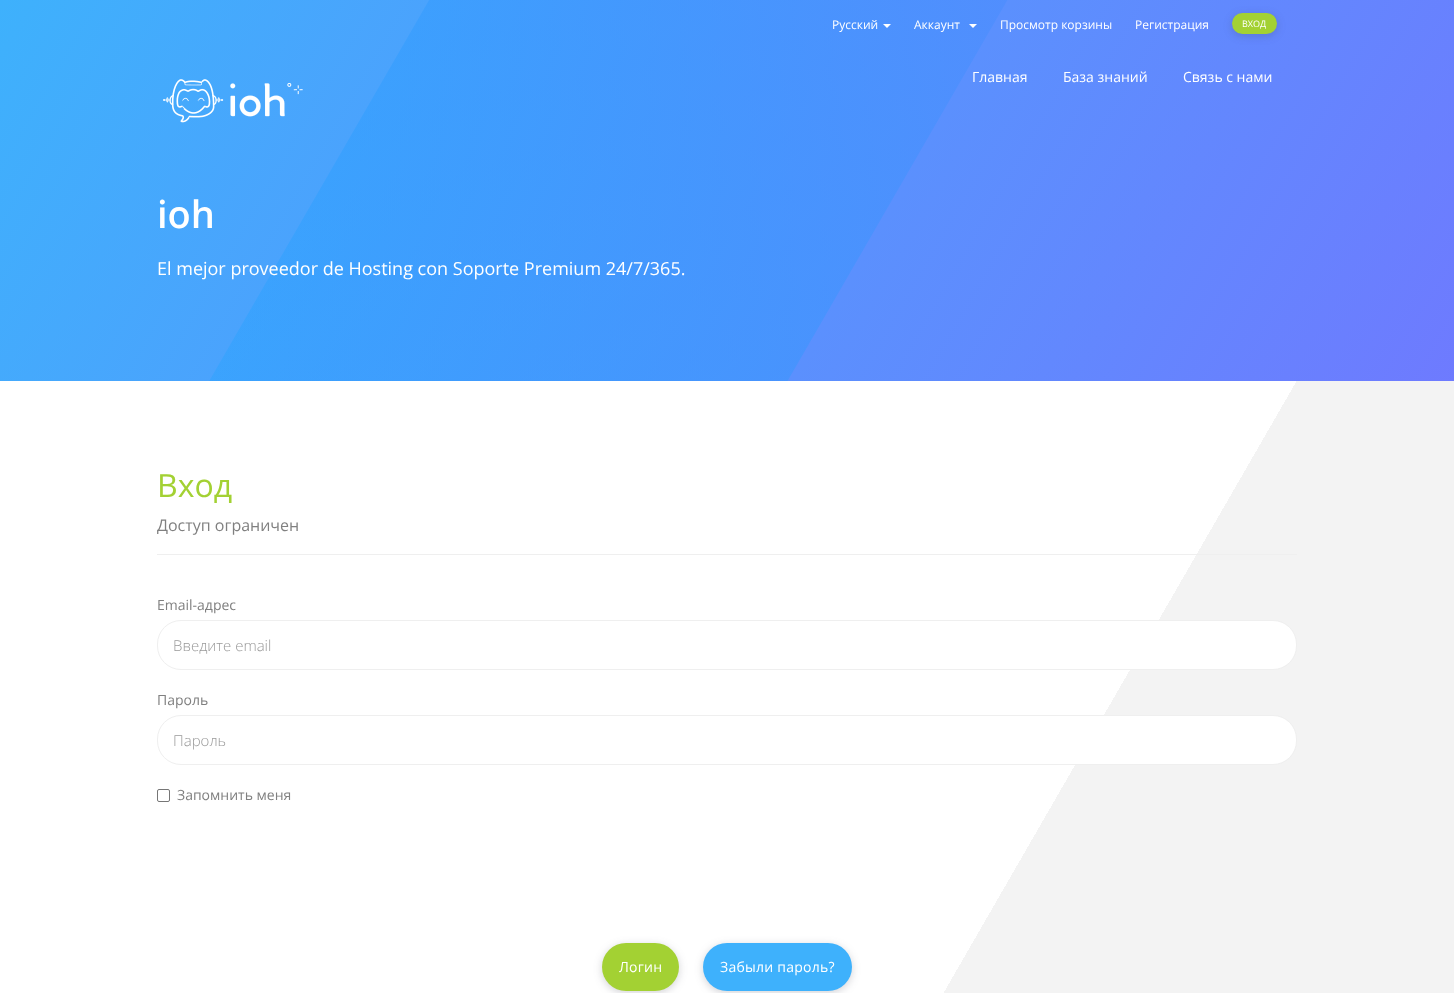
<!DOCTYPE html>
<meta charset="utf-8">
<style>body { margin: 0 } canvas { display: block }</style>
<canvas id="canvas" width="1454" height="993"></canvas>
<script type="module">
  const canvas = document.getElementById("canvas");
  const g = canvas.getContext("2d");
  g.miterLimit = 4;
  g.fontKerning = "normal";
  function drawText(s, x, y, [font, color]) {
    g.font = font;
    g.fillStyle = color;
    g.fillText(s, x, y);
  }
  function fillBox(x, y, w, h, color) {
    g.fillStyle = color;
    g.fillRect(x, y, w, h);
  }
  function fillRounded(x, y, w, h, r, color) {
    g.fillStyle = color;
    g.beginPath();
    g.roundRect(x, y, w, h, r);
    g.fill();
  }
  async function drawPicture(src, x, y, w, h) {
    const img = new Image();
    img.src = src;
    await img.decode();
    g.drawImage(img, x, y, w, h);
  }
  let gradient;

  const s1 = ["12px Open Sans", "#FFFFFF"];
  const s2 = ["9px Open Sans", "#FFFFFF"];
  const s3 = ["14px Open Sans", "#FFFFFF"];
  const s4 = ["600 38px Open Sans", "#FFFFFF"];
  const s5 = ["18px Open Sans", "#FFFFFF"];
  const s6 = ["32px Open Sans", "#A3D133"];
  const s7 = ["16px Open Sans", "#808080"];
  const s8 = ["14px Open Sans", "#808080"];
  const s9 = ["300 15px Open Sans", "#999999"];

  fillBox(0, 0, 1454, 993, "#FFFFFF");
  gradient = g.createLinearGradient(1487, 935, -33, 58);
  gradient.addColorStop(0, "#786FFF");
  gradient.addColorStop(1, "#3EB1FC");
  g.fillStyle = gradient;
  g.fillRect(0, 0, 1454, 381);
  gradient = g.createLinearGradient(1409, -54, -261, 554);
  gradient.addColorStop(0, "#6484FD");
  gradient.addColorStop(1, "rgba(4, 175, 255, 0.1)");
  g.fillStyle = gradient;
  g.beginPath();
  g.moveTo(-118, 948);
  g.lineTo(832, -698);
  g.lineTo(1266, -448);
  g.lineTo(316, 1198);
  g.closePath();
  g.fill();
  drawText("Русский", 832, 29, s1);
  g.beginPath();
  g.moveTo(883, 24);
  g.lineTo(891, 24);
  g.lineTo(887, 28);
  g.closePath();
  g.fill();
  drawText("Аккаунт", 914, 29, s1);
  g.beginPath();
  g.moveTo(969, 24);
  g.lineTo(977, 24);
  g.lineTo(973, 28);
  g.closePath();
  g.fill();
  drawText("Просмотр корзины", 1000, 29, s1);
  drawText("Регистрация", 1135, 29, s1);
  g.fillStyle = "rgba(62, 62, 79, 0.23)";
  g.filter = "blur(4px)";
  g.beginPath();
  g.roundRect(1232, 15, 45, 21, 10.5);
  g.fill();
  g.filter = "none";
  fillRounded(1232, 13, 45, 21, 10.5, "#A3D133");
  drawText("ВХОД", 1242, 27, s2);
  drawText("Главная", 972, 82, s3);
  drawText("База знаний", 1063, 82, s3);
  drawText("Связь с нами", 1183, 82, s3);
  await drawPicture("pic1.png", 163, 79, 140, 44);
  drawText("ioh", 157, 228, s4);
  drawText("El mejor proveedor de Hosting con Soporte Premium 24/7/365.", 157, 275, s5);
  gradient = g.createLinearGradient(32, 325, 1422, 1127);
  gradient.addColorStop(0.7, "#FFFFFF");
  gradient.addColorStop(0.7, "#F3F3F3");
  g.fillStyle = gradient;
  g.fillRect(0, 381, 1454, 612);
  fillBox(157, 554, 1140, 1, "#EFEFEF");
  drawText("Вход", 157, 497, s6);
  drawText("Доступ ограничен", 157, 531, s7);
  drawText("Email-адрес", 157, 610, s8);
  g.fillStyle = "#FFFFFF";
  g.beginPath();
  g.roundRect(157.5, 620.5, 1139, 49, 23.5);
  g.fill();
  g.strokeStyle = "#EFEFEF";
  g.stroke();
  drawText("Введите email", 173, 651, s9);
  drawText("Пароль", 157, 705, s8);
  g.fillStyle = "#FFFFFF";
  g.beginPath();
  g.roundRect(157.5, 715.5, 1139, 49, 23.5);
  g.fill();
  g.stroke();
  drawText("Пароль", 173, 746, s9);
  g.beginPath();
  g.roundRect(157.5, 789.5, 12, 12, 1.5);
  g.strokeStyle = "#767676";
  g.stroke();
  drawText("Запомнить меня", 177, 800, s8);
  g.fillStyle = "rgba(62, 62, 79, 0.23)";
  g.filter = "blur(4px)";
  g.beginPath();
  g.roundRect(602, 945, 77, 48, 24);
  g.fill();
  g.filter = "none";
  fillRounded(602, 943, 77, 48, 24, "#A3D133");
  g.letterSpacing = "0.25px";
  drawText("Логин", 619, 972, s3);
  g.fillStyle = "rgba(62, 62, 79, 0.23)";
  g.filter = "blur(4px)";
  g.beginPath();
  g.roundRect(703, 945, 149, 48, 24);
  g.fill();
  g.filter = "none";
  fillRounded(703, 943, 149, 48, 24, "#3EB1FC");
  drawText("Забыли пароль?", 720, 972, s3);
</script>
